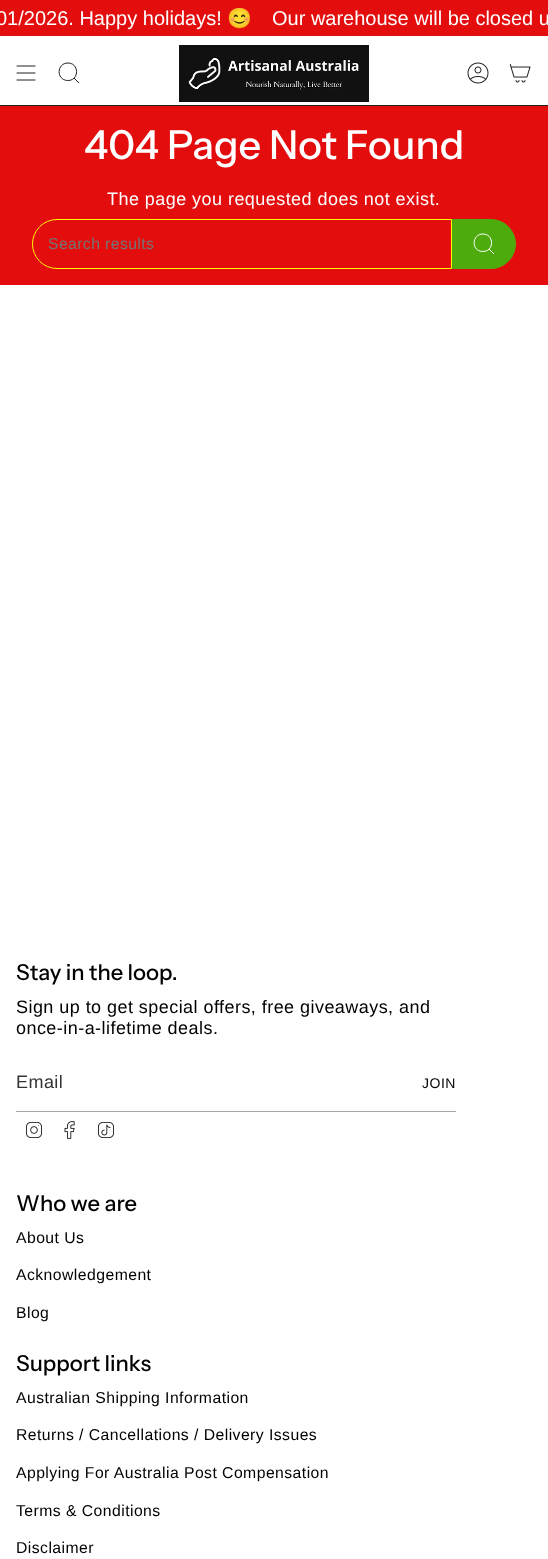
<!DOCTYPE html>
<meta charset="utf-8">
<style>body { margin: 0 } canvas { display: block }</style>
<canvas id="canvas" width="548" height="1559"></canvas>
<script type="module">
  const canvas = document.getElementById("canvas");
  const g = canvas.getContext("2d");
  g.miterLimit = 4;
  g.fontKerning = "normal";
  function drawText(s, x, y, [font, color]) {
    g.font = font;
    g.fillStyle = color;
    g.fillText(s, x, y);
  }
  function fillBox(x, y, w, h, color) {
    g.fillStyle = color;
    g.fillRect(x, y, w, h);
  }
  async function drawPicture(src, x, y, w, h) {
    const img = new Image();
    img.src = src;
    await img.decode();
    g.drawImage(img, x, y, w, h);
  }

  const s1 = ["20px Liberation Sans", "#FFFFFF"];
  const s2 = ["20px Noto Color Emoji", "#FFFFFF"];
  const s3 = ["500 40px Instrument Sans", "#FFFFFF"];
  const s4 = ["18px Liberation Sans", "#FFFFFF"];
  const s5 = ["15.75px Liberation Sans", "#757575"];
  const s6 = ["500 22px Instrument Sans", "#000000"];
  const s7 = ["18px Liberation Sans", "#000000"];
  const s8 = ["18px Liberation Sans", "#333333"];
  const s9 = ["14px Liberation Sans", "#000000"];
  const s10 = ["15.75px Liberation Sans", "#000000"];

  fillBox(0, 0, 548, 1559, "#FFFFFF");
  fillBox(0, 0, 548, 36, "#E30D0D");
  drawText("01/2026. Happy holidays!", -4, 25, s1);
  drawText("😊", 227, 25, s2);
  drawText("Our warehouse will be closed u", 272, 25, s1);
  g.beginPath();
  g.moveTo(17, 66);
  g.lineTo(35, 66);
  g.moveTo(17, 73);
  g.lineTo(35, 73);
  g.moveTo(17, 80);
  g.lineTo(35, 80);
  g.strokeStyle = "#212121";
  g.lineCap = "round";
  g.lineJoin = "round";
  g.stroke();
  g.beginPath();
  g.moveTo(68, 63);
  g.bezierCurveTo(79.5, 63, 79.5, 81, 67.5, 80.5);
  g.bezierCurveTo(56, 80, 56.5, 63, 68, 63);
  g.closePath();
  g.moveTo(74, 78);
  g.lineTo(79, 83);
  g.lineCap = "butt";
  g.lineJoin = "miter";
  g.stroke();
  await drawPicture("pic1.png", 179, 45, 190, 57);
  await drawPicture("pic2.png", 467, 62, 22, 22);
  await drawPicture("pic3.png", 509, 64, 22, 19);
  fillBox(0, 105, 548, 1, "#212121");
  fillBox(0, 106, 548, 179, "#E30D0D");
  drawText("404 Page Not Found", 84, 159, s3);
  g.letterSpacing = "0.45px";
  drawText("The page you requested does not exist.", 107, 205, s4);
  g.beginPath();
  g.roundRect(32.5, 219.5, 419, 49, [24.5, 0, 0, 24.5]);
  g.strokeStyle = "#FEF900";
  g.stroke();
  g.letterSpacing = "0.4px";
  drawText("Search results", 48, 249, s5);
  g.fillStyle = "#4EAB0D";
  g.beginPath();
  g.roundRect(452.5, 219.5, 63, 49, [0, 24.5, 24.5, 0]);
  g.fill();
  g.strokeStyle = "#4EAB0D";
  g.stroke();
  g.beginPath();
  g.moveTo(483, 234);
  g.bezierCurveTo(494.5, 234, 494.5, 252, 482.5, 251.5);
  g.bezierCurveTo(471, 251, 471.5, 234, 483, 234);
  g.closePath();
  g.moveTo(489, 249);
  g.lineTo(494, 254);
  g.strokeStyle = "#FFFFFF";
  g.stroke();
  g.letterSpacing = "0px";
  drawText("Stay in the loop.", 16, 980, s6);
  g.letterSpacing = "0.45px";
  drawText("Sign up to get special offers, free giveaways, and", 16, 1013, s7);
  drawText("once-in-a-lifetime deals.", 16, 1034, s7);
  fillBox(16, 1111, 440, 1, "#A6A6A6");
  drawText("Email", 16, 1088, s8);
  g.letterSpacing = "0.5px";
  drawText("JOIN", 422, 1088, s9);
  await drawPicture("pic4.png", 26, 1122, 16, 16);
  await drawPicture("pic5.png", 64, 1121, 11, 18);
  await drawPicture("pic6.png", 98, 1122, 16, 16);
  g.letterSpacing = "0px";
  drawText("Who we are", 16, 1211, s6);
  g.letterSpacing = "0.45px";
  drawText("About Us", 16, 1243, s10);
  drawText("Acknowledgement", 16, 1280, s10);
  drawText("Blog", 16, 1318, s10);
  g.letterSpacing = "0px";
  drawText("Support links", 16, 1371, s6);
  g.letterSpacing = "0.45px";
  drawText("Australian Shipping Information", 16, 1403, s10);
  drawText("Returns / Cancellations / Delivery Issues", 16, 1440, s10);
  drawText("Applying For Australia Post Compensation", 16, 1478, s10);
  drawText("Terms & Conditions", 16, 1516, s10);
  drawText("Disclaimer", 16, 1553, s10);
</script>
